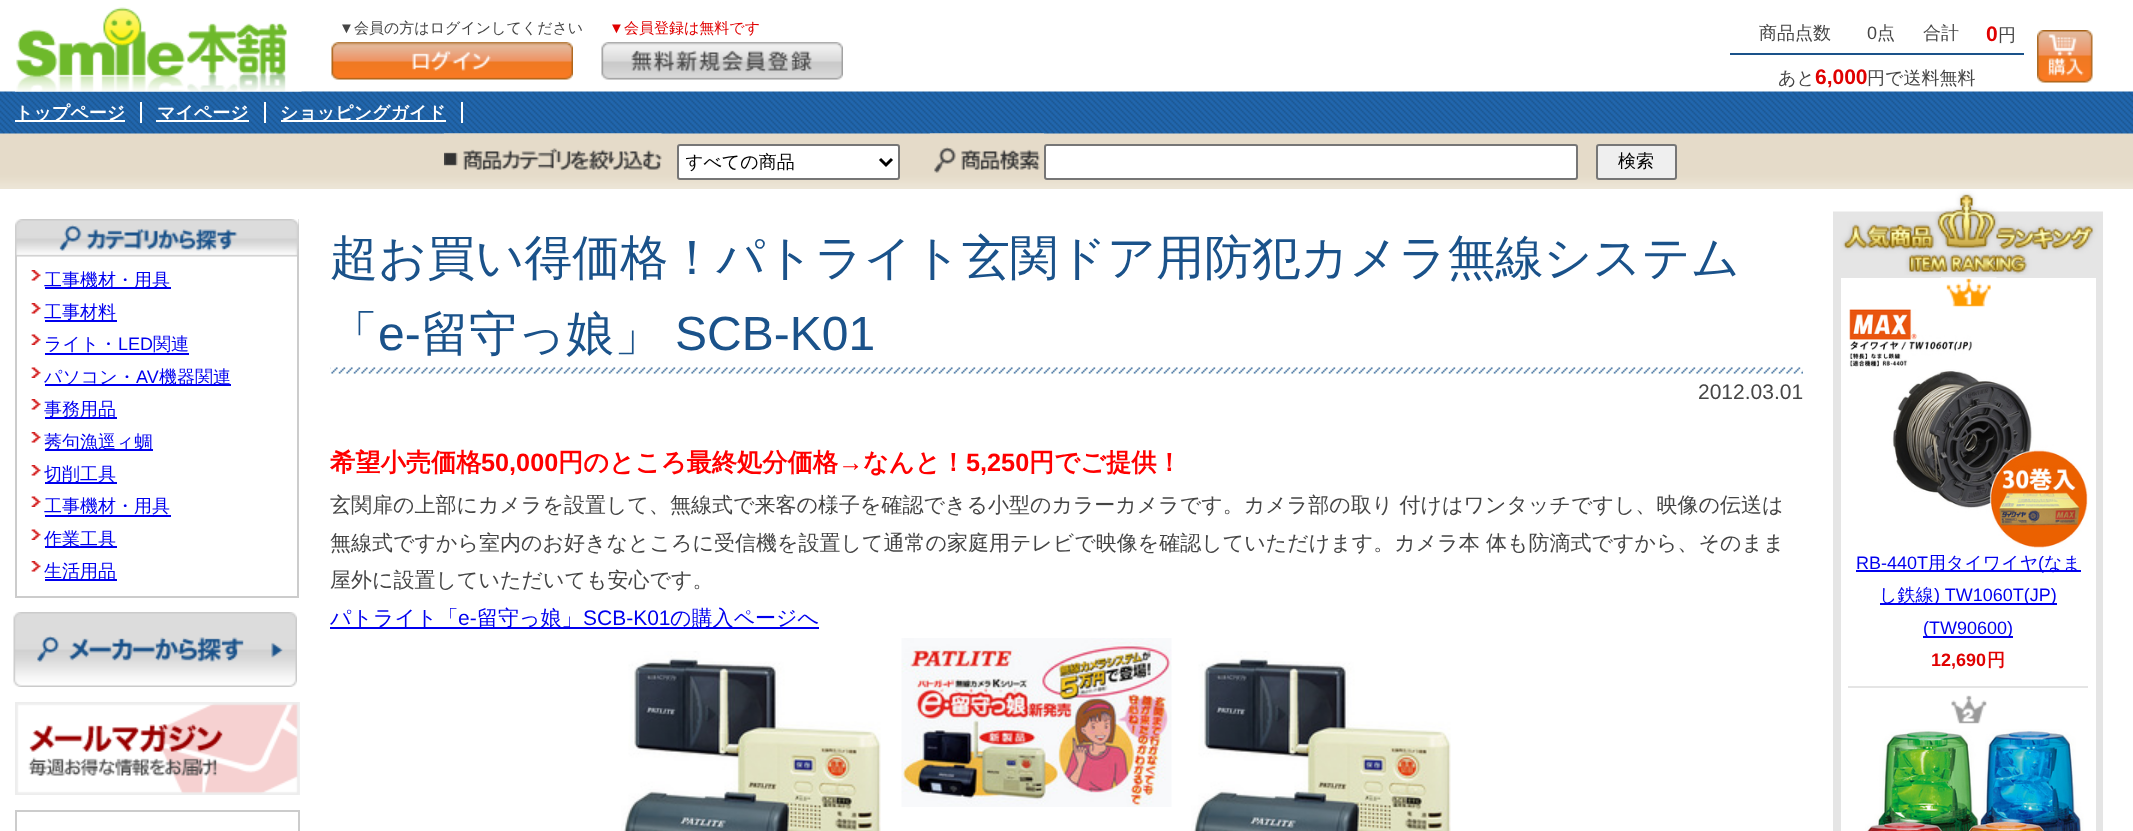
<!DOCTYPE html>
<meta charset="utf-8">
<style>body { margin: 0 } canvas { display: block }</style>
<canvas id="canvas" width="2133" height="831"></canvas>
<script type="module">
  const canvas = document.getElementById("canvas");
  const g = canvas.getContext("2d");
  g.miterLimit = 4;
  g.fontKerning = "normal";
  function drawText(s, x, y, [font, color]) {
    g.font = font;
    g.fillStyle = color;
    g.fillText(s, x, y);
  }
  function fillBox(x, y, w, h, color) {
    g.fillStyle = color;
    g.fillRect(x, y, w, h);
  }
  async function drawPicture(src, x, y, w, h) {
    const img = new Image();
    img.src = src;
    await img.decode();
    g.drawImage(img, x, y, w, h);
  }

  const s1 = ["15px Liberation Sans", "#454545"];
  const s2 = ["500 15px WenQuanYi Zen Hei", "#454545"];
  const s3 = ["15px Liberation Sans", "#E00000"];
  const s4 = ["500 15px WenQuanYi Zen Hei", "#E00000"];
  const s5 = ["500 18px WenQuanYi Zen Hei", "#454545"];
  const s6 = ["18px Liberation Sans", "#454545"];
  const s7 = ["bold 21px Liberation Sans", "#E00000"];
  const s8 = ["bold 18px WenQuanYi Zen Hei", "#FFFFFF"];
  const s9 = ["500 18px WenQuanYi Zen Hei", "#000000"];
  const s10 = ["500 18px WenQuanYi Zen Hei", "#0000EE"];
  const s11 = ["18px Liberation Sans", "#0000EE"];
  const s12 = ["500 48px WenQuanYi Zen Hei", "#1A528A"];
  const s13 = ["48px Liberation Sans", "#1A528A"];
  const s14 = ["21px Liberation Sans", "#454545"];
  const s15 = ["bold 25.25px WenQuanYi Zen Hei", "#FF0000"];
  const s16 = ["bold 25.25px Liberation Sans", "#FF0000"];
  const s17 = ["500 21px WenQuanYi Zen Hei", "#454545"];
  const s18 = ["500 21px WenQuanYi Zen Hei", "#0000EE"];
  const s19 = ["21px Liberation Sans", "#0000EE"];
  const s20 = ["bold 18px Liberation Sans", "#E00000"];
  const s21 = ["bold 18px WenQuanYi Zen Hei", "#E00000"];

  fillBox(0, 0, 2133, 831, "#FFFFFF");
  await drawPicture("pic1.png", 0, 91, 2133, 98);
  await drawPicture("pic2.png", 15, 7, 287, 85);
  drawText("▼", 339, 33, s1);
  drawText("会員の方はログインしてください", 354, 33, s2);
  await drawPicture("pic3.png", 331, 42, 242, 38);
  drawText("▼", 609, 33, s3);
  drawText("会員登録は無料です", 624, 33, s4);
  await drawPicture("pic4.png", 601, 42, 242, 38);
  drawText("商品点数", 1759, 39, s5);
  drawText("0", 1867, 39, s6);
  drawText("点", 1877, 39, s5);
  drawText("合計", 1923, 39, s5);
  drawText("0", 1986, 41, s7);
  drawText("円", 1998, 41, s5);
  await drawPicture("pic5.png", 2037, 30, 56, 53);
  fillBox(1730, 53, 294, 2, "#1A528A");
  drawText("あと", 1778, 84, s5);
  drawText("6,000", 1815, 84, s7);
  drawText("円で送料無料", 1867, 84, s5);
  fillBox(15, 120, 110, 2, "#FFFFFF");
  drawText("トップページ", 15, 119, s8);
  fillBox(140, 102, 2, 21, "#FFFFFF");
  fillBox(156, 120, 93, 2, "#FFFFFF");
  drawText("マイページ", 157, 119, s8);
  fillBox(264, 102, 2, 21, "#FFFFFF");
  fillBox(281, 120, 165, 2, "#FFFFFF");
  drawText("ショッピングガイド", 280, 119, s8);
  fillBox(461, 102, 2, 21, "#FFFFFF");
  await drawPicture("pic6.png", 444, 133, 218, 38);
  g.beginPath();
  g.roundRect(678, 145, 221, 34, 2);
  g.fill();
  g.strokeStyle = "#767676";
  g.lineWidth = 2;
  g.stroke();
  g.beginPath();
  g.moveTo(880, 159);
  g.lineTo(886, 165);
  g.lineTo(892, 159);
  g.strokeStyle = "#000000";
  g.lineWidth = 3;
  g.stroke();
  g.save();
  g.beginPath();
  g.rect(686, 150, 187, 24);
  g.clip();
  drawText("すべての商品", 685, 168, s9);
  g.restore();
  await drawPicture("pic7.png", 930, 133, 114, 40);
  g.beginPath();
  g.roundRect(1045, 145, 532, 34, 2);
  g.fill();
  g.strokeStyle = "#767676";
  g.lineWidth = 2;
  g.stroke();
  g.fillStyle = "#EFEFEF";
  g.beginPath();
  g.roundRect(1597, 145, 79, 34, 2);
  g.fill();
  g.stroke();
  drawText("検索", 1618, 167, s9);
  fillBox(297, 219, 2, 378, "#CCCCCC");
  fillBox(15, 596, 284, 2, "#CCCCCC");
  fillBox(15, 256, 2, 341, "#CCCCCC");
  await drawPicture("pic8.png", 15, 219, 284, 38);
  await drawPicture("pic9.png", 31, 270, 10, 11);
  fillBox(45, 287, 126, 2, "#0000EE");
  drawText("工事機材・用具", 44, 286, s10);
  await drawPicture("pic9.png", 31, 303, 10, 11);
  fillBox(45, 320, 72, 2, "#0000EE");
  drawText("工事材料", 44, 318, s10);
  await drawPicture("pic10.png", 31, 334, 10, 11);
  drawText("ライト・", 44, 350, s10);
  fillBox(45, 353, 144, 2, "#0000EE");
  drawText("LED", 118, 350, s11);
  drawText("関連", 153, 350, s10);
  await drawPicture("pic10.png", 31, 367, 10, 11);
  fillBox(45, 384, 186, 2, "#0000EE");
  drawText("パソコン・", 44, 383, s10);
  drawText("AV", 136, 383, s11);
  drawText("機器関連", 159, 383, s10);
  await drawPicture("pic9.png", 31, 399, 10, 11);
  fillBox(45, 417, 72, 2, "#0000EE");
  drawText("事務用品", 44, 415, s10);
  await drawPicture("pic9.png", 31, 432, 10, 11);
  fillBox(45, 449, 108, 2, "#0000EE");
  drawText("莠句漁逕ィ蜩", 44, 448, s10);
  await drawPicture("pic9.png", 31, 465, 10, 11);
  fillBox(45, 482, 72, 2, "#0000EE");
  drawText("切削工具", 44, 480, s10);
  await drawPicture("pic10.png", 31, 496, 10, 11);
  drawText("工事機材・用具", 44, 512, s10);
  fillBox(45, 515, 126, 2, "#0000EE");
  await drawPicture("pic10.png", 31, 529, 10, 11);
  fillBox(45, 546, 72, 2, "#0000EE");
  drawText("作業工具", 44, 545, s10);
  await drawPicture("pic9.png", 31, 561, 10, 11);
  fillBox(45, 579, 72, 2, "#0000EE");
  drawText("生活用品", 44, 577, s10);
  await drawPicture("pic11.png", 13, 612, 284, 75);
  await drawPicture("pic12.png", 15, 702, 285, 93);
  g.strokeStyle = "#CCCCCC";
  g.strokeRect(16, 811, 283, 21);
  await drawPicture("pic13.png", 330, 367, 1473, 7);
  drawText("超お買い得価格！パトライト玄関ドア用防犯カメラ無線システム", 330, 274, s12);
  drawText("「", 330, 350, s12);
  drawText("e-", 378, 350, s13);
  drawText("留守っ娘」", 421, 350, s12);
  drawText("SCB-K01", 675, 350, s13);
  drawText("2012.03.01", 1698, 399, s14);
  drawText("希望小売価格", 330, 471, s15);
  drawText("50,000", 481, 471, s16);
  drawText("円のところ最終処分価格", 558, 471, s15);
  drawText("→", 838, 471, s16);
  drawText("なんと！", 863, 471, s15);
  drawText("5,250", 966, 471, s16);
  drawText("円でご提供！", 1029, 471, s15);
  drawText("玄関扉の上部にカメラを設置して、無線式で来客の様子を確認できる小型のカラーカメラです。カメラ部の取り 付けはワンタッチですし、映像の伝送は", 330, 512, s17);
  drawText("無線式ですから室内のお好きなところに受信機を設置して通常の家庭用テレビで映像を確認していただけます。カメラ本 体も防滴式ですから、そのまま", 330, 550, s17);
  drawText("屋外に設置していただいても安心です。", 330, 587, s17);
  fillBox(330, 627, 489, 2, "#0000EE");
  drawText("パトライト「", 330, 625, s18);
  drawText("e-", 458, 625, s19);
  drawText("留守っ娘」", 477, 625, s18);
  drawText("SCB-K01", 583, 625, s19);
  drawText("の購入ページへ", 670, 625, s18);
  await drawPicture("pic14.png", 621, 651, 260, 180);
  await drawPicture("pic15.png", 901, 638, 271, 169);
  await drawPicture("pic16.png", 1191, 651, 260, 180);
  fillBox(1833, 275, 270, 556, "#E5E5E5");
  await drawPicture("pic17.png", 1833, 189, 270, 86);
  fillBox(1841, 278, 255, 553, "#FFFFFF");
  fillBox(1848, 686, 240, 2, "#E5E5E5");
  await drawPicture("pic18.png", 1941, 277, 56, 30);
  await drawPicture("pic19.png", 1849, 309, 239, 239);
  drawText("RB-440T", 1856, 569, s11);
  fillBox(1856, 570, 225, 2, "#0000EE");
  drawText("用タイワイヤ", 1928, 569, s10);
  drawText("(", 2038, 569, s11);
  drawText("なま", 2044, 569, s10);
  fillBox(1880, 603, 177, 2, "#0000EE");
  drawText("し鉄線", 1879, 601, s10);
  drawText(") TW1060T(JP)", 1934, 601, s11);
  fillBox(1923, 636, 90, 2, "#0000EE");
  drawText("(TW90600)", 1923, 634, s11);
  drawText("12,690", 1931, 666, s20);
  drawText("円", 1987, 666, s21);
  await drawPicture("pic20.png", 1951, 695, 36, 29);
  await drawPicture("pic21.png", 1865, 729, 219, 102);
</script>
